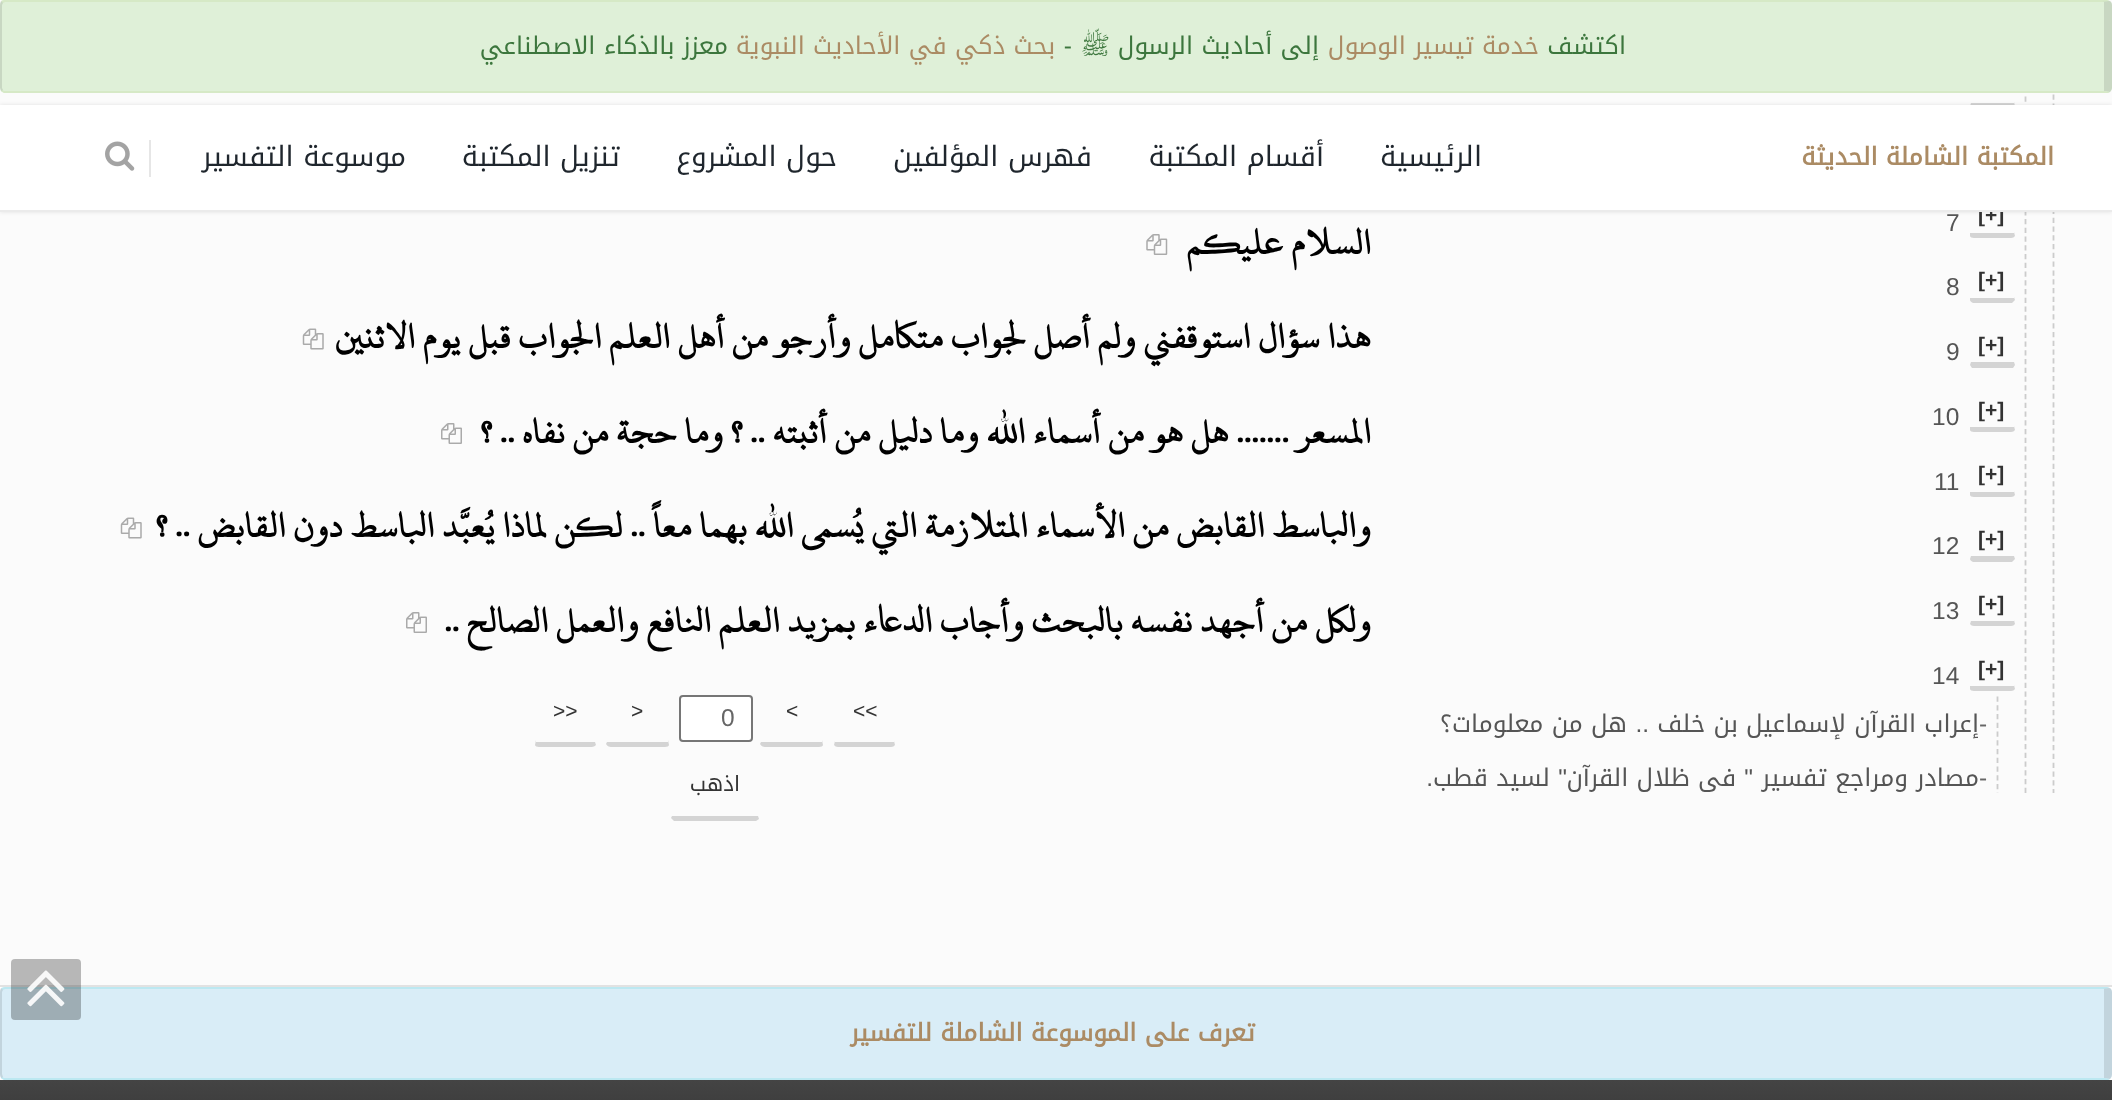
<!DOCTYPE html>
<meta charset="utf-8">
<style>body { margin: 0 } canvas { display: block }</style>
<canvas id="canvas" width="2112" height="1100"></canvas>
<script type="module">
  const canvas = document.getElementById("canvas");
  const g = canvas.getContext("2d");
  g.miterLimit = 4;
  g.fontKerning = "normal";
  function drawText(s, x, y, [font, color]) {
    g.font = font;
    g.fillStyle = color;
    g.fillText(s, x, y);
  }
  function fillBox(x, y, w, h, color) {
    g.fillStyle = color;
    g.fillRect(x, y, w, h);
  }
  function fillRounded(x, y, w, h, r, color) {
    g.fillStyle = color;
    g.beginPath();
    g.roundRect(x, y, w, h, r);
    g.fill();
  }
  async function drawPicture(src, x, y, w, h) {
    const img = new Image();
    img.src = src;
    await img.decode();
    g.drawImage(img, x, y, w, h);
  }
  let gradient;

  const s1 = ["24.5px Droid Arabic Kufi", "#3C763D"];
  const s2 = ["24.5px Droid Arabic Kufi", "#AB8B64"];
  const s3 = ["24.5px Lateef", "#3C763D"];
  const s4 = ["24.5px Liberation Sans", "#3C763D"];
  const s5 = ["bold 21px Liberation Sans", "#333333"];
  const s6 = ["bold 24.5px Droid Arabic Kufi", "#AB8B64"];
  const s7 = ["28px Droid Arabic Kufi", "#1F262D"];
  const s8 = ["24.5px Liberation Sans", "#555555"];
  const s9 = ["24.5px Liberation Sans", "#666666"];
  const s10 = ["24.5px Droid Arabic Kufi", "#555555"];
  const s11 = ["bold 38.5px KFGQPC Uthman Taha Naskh", "#000000"];
  const s12 = ["21px Liberation Sans", "#333333"];
  const s13 = ["21px Droid Arabic Kufi", "#333333"];

  fillBox(0, 0, 2112, 1100, "#FFFFFF");
  fillBox(0, 0, 2112, 985, "#FBFBFB");
  g.beginPath();
  g.moveTo(2053.5, -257);
  g.lineTo(2053.5, 793);
  g.strokeStyle = "#CCCCCC";
  g.lineWidth = 1.8;
  g.setLineDash([5.25, 3.54]);
  g.stroke();
  g.save();
  g.beginPath();
  g.rect(1425, 0, 628, 793);
  g.clip();
  g.beginPath();
  g.moveTo(2025.5, -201);
  g.lineTo(2025.5, 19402);
  g.setLineDash([5.25, 3.5]);
  g.stroke();
  g.restore();
  fillRounded(0, 0, 2112, 93, 5, "#DFF0D8");
  g.fillStyle = "#D6E9C6";
  g.beginPath();
  g.moveTo(5, 0);
  g.bezierCurveTo(4, 0, 2, 0, 1, 1);
  g.lineTo(3, 3);
  g.lineTo(5, 2);
  g.lineTo(2102, 2);
  g.lineTo(2109, 1);
  g.lineTo(2107, 0);
  g.closePath();
  g.fill();
  g.fillStyle = "rgba(0, 0, 0, 0.1)";
  g.beginPath();
  g.moveTo(2109, 1);
  g.bezierCurveTo(2111, 1, 2112, 3, 2112, 5);
  g.lineTo(2112, 88);
  g.bezierCurveTo(2112, 89, 2111, 91, 2110, 92);
  g.lineTo(2104, 91);
  g.lineTo(2104, 2);
  g.lineTo(2102, 2);
  g.closePath();
  g.fill();
  g.fillStyle = "#D6E9C6";
  g.beginPath();
  g.moveTo(4, 93);
  g.lineTo(1, 91);
  g.lineTo(3, 90);
  g.bezierCurveTo(3, 91, 4, 91, 5, 91);
  g.lineTo(2104, 91);
  g.lineTo(2110, 92);
  g.lineTo(2108, 93);
  g.closePath();
  g.fill();
  g.fillStyle = "rgba(0, 0, 0, 0.1)";
  g.beginPath();
  g.moveTo(0, 5);
  g.lineTo(0, 88);
  g.lineTo(1, 91);
  g.lineTo(3, 90);
  g.lineTo(2, 88);
  g.lineTo(2, 5);
  g.lineTo(3, 3);
  g.lineTo(1, 1);
  g.bezierCurveTo(0, 2, 0, 4, 0, 5);
  g.closePath();
  g.fill();
  g.direction = "rtl";
  drawText("اكتشف", 1626, 54, s1);
  drawText("خدمة تيسير الوصول", 1539, 54, s2);
  drawText("إلى أحاديث الرسول", 1319, 54, s1);
  drawText("ﷺ", 1110, 54, s3);
  drawText("-", 1072, 54, s4);
  drawText("بحث ذكي في الأحاديث النبوية", 1055, 54, s2);
  drawText("معزز بالذكاء الاصطناعي", 728, 54, s1);
  g.fillStyle = "#D4D4D4";
  g.beginPath();
  g.moveTo(2015, 106);
  g.bezierCurveTo(2014, 107, 2013, 108, 2011, 108);
  g.lineTo(1974, 108);
  g.bezierCurveTo(1972, 108, 1971, 107, 1970, 106);
  g.lineTo(1971, 103);
  g.lineTo(2014, 103);
  g.lineTo(2014, 102);
  g.closePath();
  g.fill();
  g.fillStyle = "rgba(0, 0, 0, 0.1)";
  g.filter = "blur(2px)";
  g.beginPath();
  g.rect(0, 105, 2112, 107);
  g.fill();
  g.filter = "none";
  g.direction = "ltr";
  drawText("[+]", 1978, 222, s5);
  fillBox(0, 105, 2112, 105, "#FFFFFF");
  fillBox(0, 210, 2112, 2, "#EBEBEB");
  g.direction = "rtl";
  drawText("المكتبة الشاملة الحديثة", 2054, 165, s6);
  drawText("الرئيسية", 1482, 166, s7);
  drawText("أقسام المكتبة", 1324, 166, s7);
  drawText("فهرس المؤلفين", 1092, 166, s7);
  drawText("حول المشروع", 837, 166, s7);
  drawText("تنزيل المكتبة", 620, 166, s7);
  drawText("موسوعة التفسير", 406, 166, s7);
  fillBox(149, 140, 2, 37, "#E6E6E6");
  await drawPicture("pic1.png", 105, 141, 30, 30);
  fillBox(0, 985, 2112, 2, "#E2E2E2");
  g.fillStyle = "#D4D4D4";
  g.beginPath();
  g.moveTo(1974, 238);
  g.lineTo(2011, 238);
  g.bezierCurveTo(2013, 238, 2014, 237, 2015, 236);
  g.lineTo(2014, 232);
  g.lineTo(2014, 233);
  g.lineTo(1970, 233);
  g.lineTo(1970, 236);
  g.bezierCurveTo(1970, 237, 1972, 238, 1974, 238);
  g.closePath();
  g.fill();
  g.direction = "ltr";
  drawText("7", 1946, 231, s8);
  g.fillStyle = "#D4D4D4";
  g.beginPath();
  g.moveTo(1973, 303);
  g.bezierCurveTo(1971, 302, 1970, 301, 1970, 300);
  g.lineTo(1970, 298);
  g.lineTo(2014, 298);
  g.lineTo(2014, 297);
  g.lineTo(2015, 300);
  g.lineTo(2012, 303);
  g.closePath();
  g.fill();
  drawText("[+]", 1978, 287, s5);
  drawText("8", 1946, 295, s8);
  g.fillStyle = "#D4D4D4";
  g.beginPath();
  g.moveTo(1972, 368);
  g.lineTo(1970, 365);
  g.lineTo(1971, 362);
  g.lineTo(2014, 362);
  g.lineTo(2015, 365);
  g.lineTo(2013, 368);
  g.closePath();
  g.fill();
  drawText("[+]", 1978, 352, s5);
  drawText("9", 1946, 360, s8);
  g.fillStyle = "#D4D4D4";
  g.beginPath();
  g.moveTo(2015, 430);
  g.bezierCurveTo(2014, 431, 2013, 432, 2011, 432);
  g.lineTo(1974, 432);
  g.bezierCurveTo(1972, 432, 1970, 431, 1970, 430);
  g.lineTo(1970, 427);
  g.lineTo(2014, 427);
  g.lineTo(2014, 426);
  g.closePath();
  g.fill();
  drawText("[+]", 1978, 417, s5);
  drawText("10", 1932, 425, s8);
  g.fillStyle = "#D4D4D4";
  g.beginPath();
  g.moveTo(1974, 497);
  g.lineTo(2011, 497);
  g.bezierCurveTo(2013, 497, 2014, 496, 2015, 495);
  g.lineTo(2014, 491);
  g.lineTo(2014, 492);
  g.lineTo(1970, 492);
  g.lineTo(1970, 495);
  g.bezierCurveTo(1970, 496, 1972, 497, 1974, 497);
  g.closePath();
  g.fill();
  drawText("[+]", 1978, 481, s5);
  drawText("11", 1934, 490, s8);
  g.fillStyle = "#D4D4D4";
  g.beginPath();
  g.moveTo(1973, 562);
  g.bezierCurveTo(1971, 561, 1970, 560, 1970, 559);
  g.lineTo(1971, 556);
  g.lineTo(2014, 556);
  g.lineTo(2015, 559);
  g.lineTo(2012, 562);
  g.closePath();
  g.fill();
  drawText("[+]", 1978, 546, s5);
  drawText("12", 1932, 554, s8);
  g.fillStyle = "#D4D4D4";
  g.beginPath();
  g.moveTo(2015, 624);
  g.bezierCurveTo(2014, 625, 2013, 626, 2011, 626);
  g.lineTo(1974, 626);
  g.bezierCurveTo(1972, 626, 1971, 625, 1970, 624);
  g.lineTo(1971, 621);
  g.lineTo(2014, 621);
  g.lineTo(2014, 620);
  g.closePath();
  g.fill();
  drawText("[+]", 1978, 611, s5);
  drawText("13", 1932, 619, s8);
  g.fillStyle = "#D4D4D4";
  g.beginPath();
  g.moveTo(2015, 689);
  g.bezierCurveTo(2014, 690, 2013, 691, 2011, 691);
  g.lineTo(1974, 691);
  g.bezierCurveTo(1972, 691, 1970, 690, 1970, 689);
  g.lineTo(1970, 686);
  g.lineTo(2014, 686);
  g.lineTo(2014, 685);
  g.closePath();
  g.fill();
  drawText("[+]", 1978, 676, s5);
  drawText("14", 1932, 684, s8);
  g.save();
  g.beginPath();
  g.rect(1425, 0, 600, 793);
  g.clip();
  g.beginPath();
  g.moveTo(1997.5, 696.5);
  g.lineTo(1997.5, 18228);
  g.setLineDash([5.25, 3.5]);
  g.stroke();
  g.restore();
  drawText("-", 1979, 732, s9);
  g.direction = "rtl";
  drawText("إعراب القرآن لإسماعيل بن خلف", 1979, 732, s10);
  drawText("هل من معلومات؟", 1627, 732, s10);
  drawText("..", 1649, 732, s8);
  g.save();
  g.beginPath();
  g.rect(1425, 697, 572, 96);
  g.clip();
  drawText("مصادر ومراجع تفسير", 1979, 786, s10);
  g.restore();
  drawText("\"", 1753, 786, s8);
  g.save();
  g.beginPath();
  g.rect(1425, 697, 572, 96);
  g.clip();
  drawText("في ظلال القرآن", 1736, 786, s10);
  g.restore();
  drawText("\"", 1567, 786, s8);
  drawText("لسيد قطب", 1550, 786, s10);
  g.direction = "ltr";
  drawText("-", 1979, 786, s9);
  g.direction = "rtl";
  drawText(".", 1433, 786, s8);
  drawText("السلام عليكم", 1371, 254, s11);
  await drawPicture("pic2.png", 1146, 234, 22, 21);
  drawText("هذا سؤال استوقفني ولم أصل لجواب متكامل وأرجو من أهل العلم الجواب قبل يوم الاثنين", 1371, 348, s11);
  await drawPicture("pic3.png", 302, 328, 22, 22);
  drawText("المسعر ....... هل هو من أسماء الله وما دليل من أثبته .. ؟ وما حجة من نفاه .. ؟", 1371, 443, s11);
  await drawPicture("pic4.png", 441, 423, 21, 21);
  drawText("والباسط القابض من الأسماء المتلازمة التي يُسمى الله بهما معاً .. لكن لماذا يُعبَّد الباسط دون القابض .. ؟", 1371, 537, s11);
  await drawPicture("pic3.png", 120, 517, 22, 22);
  drawText("ولكل من أجهد نفسه بالبحث وأجاب الدعاء بمزيد العلم النافع والعمل الصالح ..", 1371, 632, s11);
  await drawPicture("pic4.png", 406, 612, 21, 21);
  g.fillStyle = "#D4D4D4";
  g.beginPath();
  g.moveTo(895, 745);
  g.bezierCurveTo(894, 746, 893, 747, 891, 747);
  g.lineTo(838, 747);
  g.bezierCurveTo(836, 747, 835, 746, 834, 745);
  g.lineTo(835, 741);
  g.lineTo(835, 742);
  g.lineTo(894, 742);
  g.lineTo(894, 741);
  g.closePath();
  g.fill();
  g.direction = "ltr";
  drawText("<<", 853, 718, s12);
  g.fillStyle = "#D4D4D4";
  g.beginPath();
  g.moveTo(823, 745);
  g.bezierCurveTo(823, 746, 821, 747, 819, 747);
  g.lineTo(765, 747);
  g.bezierCurveTo(763, 747, 761, 746, 760, 744);
  g.lineTo(761, 742);
  g.lineTo(822, 742);
  g.lineTo(822, 740);
  g.closePath();
  g.fill();
  drawText("<", 786, 718, s12);
  g.fillStyle = "#FFFFFF";
  g.beginPath();
  g.roundRect(680, 696, 72, 45, 3);
  g.fill();
  g.strokeStyle = "#767676";
  g.lineWidth = 2;
  g.setLineDash([]);
  g.stroke();
  drawText("0", 721, 726, s9);
  g.fillStyle = "#D4D4D4";
  g.beginPath();
  g.moveTo(669, 745);
  g.bezierCurveTo(669, 746, 667, 747, 665, 747);
  g.lineTo(611, 747);
  g.bezierCurveTo(609, 747, 607, 746, 606, 744);
  g.lineTo(607, 742);
  g.lineTo(668, 742);
  g.lineTo(668, 740);
  g.closePath();
  g.fill();
  drawText(">", 631, 718, s12);
  g.fillStyle = "#D4D4D4";
  g.beginPath();
  g.moveTo(596, 745);
  g.bezierCurveTo(595, 746, 593, 747, 592, 747);
  g.lineTo(539, 747);
  g.bezierCurveTo(537, 747, 535, 746, 535, 745);
  g.lineTo(536, 740);
  g.lineTo(536, 742);
  g.lineTo(595, 742);
  g.closePath();
  g.fill();
  drawText(">>", 553, 718, s12);
  g.fillStyle = "#D4D4D4";
  g.beginPath();
  g.moveTo(674, 821);
  g.lineTo(671, 818);
  g.lineTo(672, 816);
  g.lineTo(758, 816);
  g.lineTo(759, 819);
  g.lineTo(756, 821);
  g.closePath();
  g.fill();
  g.direction = "rtl";
  drawText("اذهب", 740, 791, s13);
  fillRounded(0, 987, 2112, 93, 5, "#D9EDF7");
  g.fillStyle = "#BCE8F1";
  g.beginPath();
  g.moveTo(5, 987);
  g.bezierCurveTo(4, 987, 2, 988, 1, 988);
  g.lineTo(3, 990);
  g.lineTo(5, 989);
  g.lineTo(2102, 989);
  g.lineTo(2109, 988);
  g.lineTo(2107, 987);
  g.closePath();
  g.fill();
  g.fillStyle = "rgba(0, 0, 0, 0.1)";
  g.beginPath();
  g.moveTo(2109, 988);
  g.bezierCurveTo(2111, 988, 2112, 990, 2112, 992);
  g.lineTo(2112, 1074);
  g.bezierCurveTo(2112, 1076, 2111, 1078, 2110, 1079);
  g.lineTo(2104, 1078);
  g.lineTo(2104, 989);
  g.lineTo(2102, 989);
  g.closePath();
  g.fill();
  g.fillStyle = "#BCE8F1";
  g.beginPath();
  g.moveTo(4, 1080);
  g.lineTo(1, 1078);
  g.lineTo(3, 1077);
  g.bezierCurveTo(3, 1078, 4, 1078, 5, 1078);
  g.lineTo(2104, 1078);
  g.lineTo(2110, 1079);
  g.lineTo(2108, 1080);
  g.closePath();
  g.fill();
  g.fillStyle = "rgba(0, 0, 0, 0.1)";
  g.beginPath();
  g.moveTo(0, 992);
  g.lineTo(0, 1074);
  g.bezierCurveTo(0, 1076, 1, 1077, 1, 1078);
  g.lineTo(3, 1077);
  g.lineTo(2, 1074);
  g.lineTo(2, 992);
  g.lineTo(3, 990);
  g.lineTo(1, 988);
  g.bezierCurveTo(0, 989, 0, 990, 0, 992);
  g.closePath();
  g.fill();
  drawText("تعرف على الموسوعة الشاملة للتفسير", 1255, 1041, s6);
  gradient = g.createLinearGradient(1056, 1080, 1056, 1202);
  gradient.addColorStop(0, "#444444");
  gradient.addColorStop(1, "#272727");
  g.fillStyle = gradient;
  g.fillRect(0, 1080, 2112, 20);
  fillRounded(11, 959, 70, 61, 4, "rgba(0, 0, 0, 0.27)");
  await drawPicture("pic5.png", 27, 970, 38, 37);
</script>
